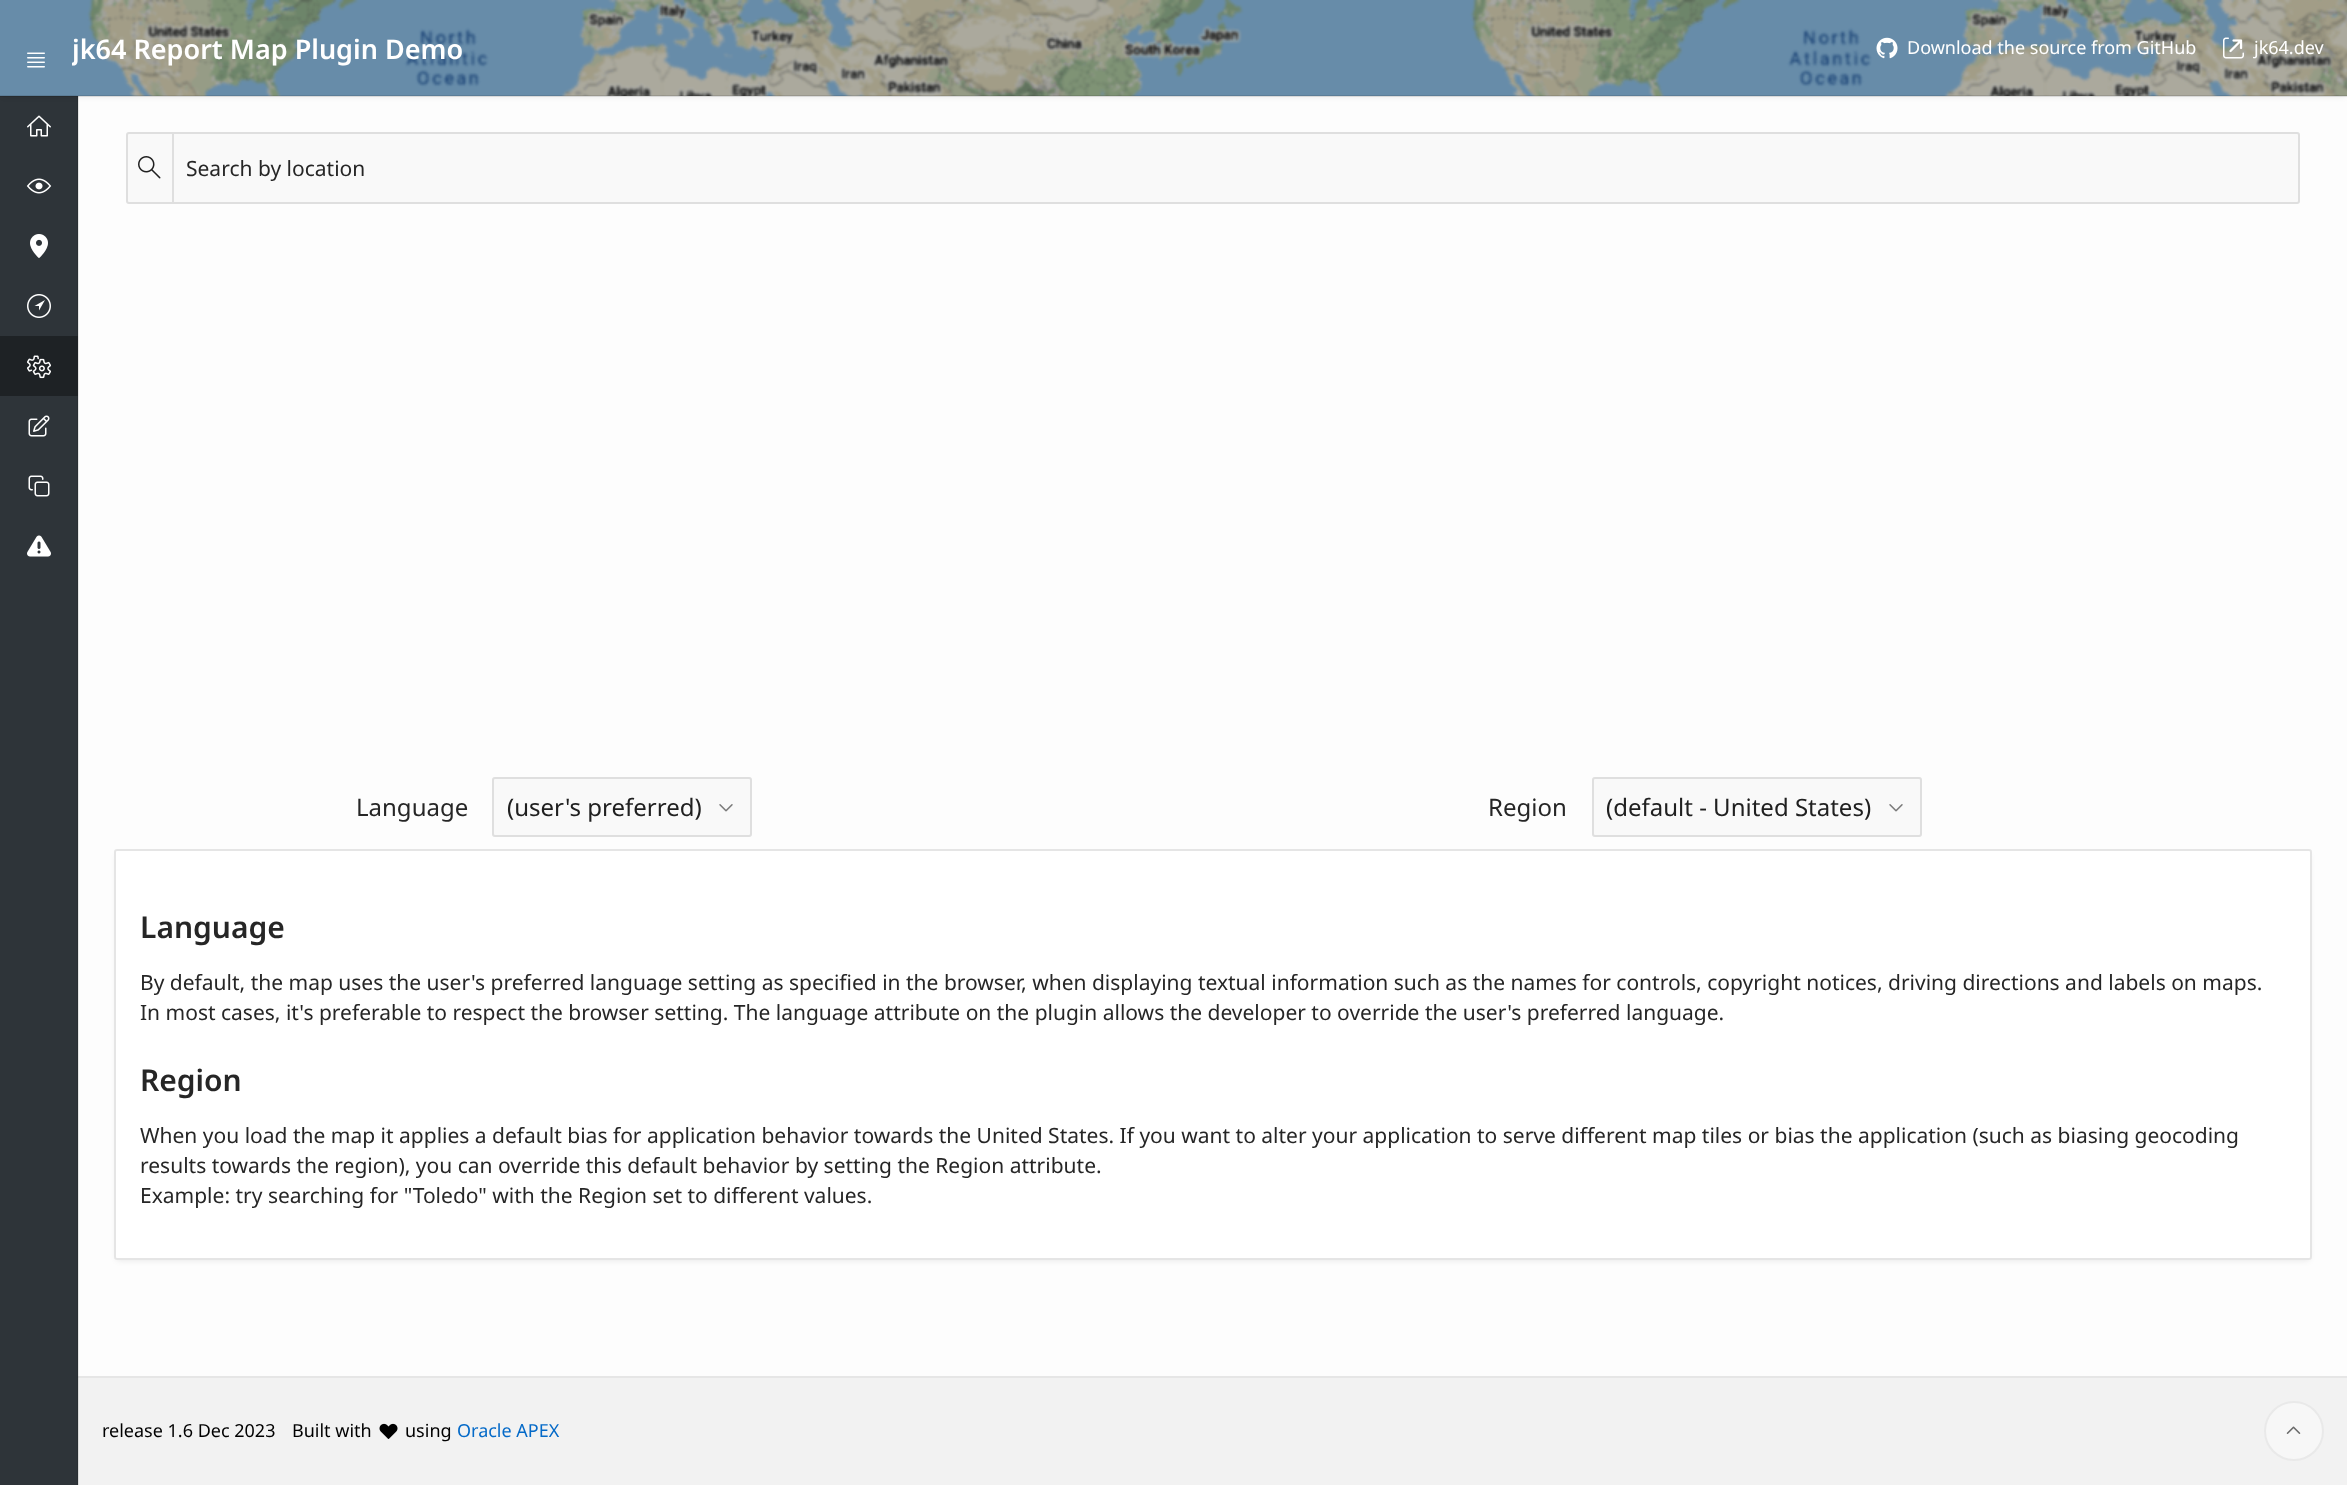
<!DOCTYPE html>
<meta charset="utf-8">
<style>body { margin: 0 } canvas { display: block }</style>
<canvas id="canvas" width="2347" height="1485"></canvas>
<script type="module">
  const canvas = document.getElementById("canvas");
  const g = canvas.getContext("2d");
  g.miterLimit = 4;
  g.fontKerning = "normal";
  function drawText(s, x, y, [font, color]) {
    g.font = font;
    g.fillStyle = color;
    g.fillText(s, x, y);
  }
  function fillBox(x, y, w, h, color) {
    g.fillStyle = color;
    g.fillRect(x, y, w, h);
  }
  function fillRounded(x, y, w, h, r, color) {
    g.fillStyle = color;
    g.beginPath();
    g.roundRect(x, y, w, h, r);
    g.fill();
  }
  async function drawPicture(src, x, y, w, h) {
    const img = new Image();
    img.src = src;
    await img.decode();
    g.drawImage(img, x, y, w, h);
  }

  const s1 = ["600 27px Noto Sans", "#FFFFFF"];
  const s2 = ["18px Noto Sans", "#FFFFFF"];
  const s3 = ["21px Noto Sans", "#262626"];
  const s4 = ["24px Noto Sans", "#262626"];
  const s5 = ["24px Noto Sans", "#202020"];
  const s6 = ["600 30px Noto Sans", "#262626"];
  const s7 = ["18px Noto Sans", "#000000"];
  const s8 = ["18px Noto Sans", "#056AC8"];

  fillBox(0, 0, 2347, 1485, "#FDFDFD");
  fillBox(78, 96, 1, 1280, "#E4E4E4");
  fillBox(0, 96, 77, 1389, "#2E3439");
  fillBox(77, 96, 1, 1389, "#292F33");
  g.fillStyle = "rgba(0, 0, 0, 0.1)";
  g.filter = "blur(3px)";
  g.beginPath();
  g.rect(3, 6, 2342, 90);
  g.fill();
  g.filter = "none";
  await drawPicture("pic1.png", 0, 0, 2347, 96);
  fillBox(0, 95, 2347, 2, "rgba(0, 0, 0, 0.1)");
  await drawPicture("pic2.png", 27, 52, 18, 16);
  g.save();
  g.beginPath();
  g.rect(72, 30, 392, 36);
  g.clip();
  drawText("jk64 Report Map Plugin Demo", 72, 59, s1);
  g.restore();
  await drawPicture("pic3.png", 1876, 37, 22, 22);
  drawText("Download the source from GitHub", 1907, 54, s2);
  await drawPicture("pic4.png", 2223, 37, 21, 22);
  drawText("jk64.dev", 2254, 54, s2);
  await drawPicture("pic5.png", 27, 115, 24, 22);
  await drawPicture("pic6.png", 26, 178, 26, 16);
  await drawPicture("pic7.png", 30, 234, 18, 24);
  await drawPicture("pic8.png", 27, 294, 24, 24);
  fillBox(0, 336, 78, 60, "#1E2225");
  await drawPicture("pic9.png", 27, 355, 24, 24);
  await drawPicture("pic10.png", 28, 415, 22, 22);
  await drawPicture("pic11.png", 28, 475, 22, 22);
  await drawPicture("pic12.png", 27, 535, 24, 22);
  g.fillStyle = "#F9F9F9";
  g.beginPath();
  g.roundRect(127, 133, 2172, 70, 2);
  g.fill();
  g.strokeStyle = "#DFDFDF";
  g.lineWidth = 2;
  g.stroke();
  fillBox(172, 132, 2, 72, "#DFDFDF");
  await drawPicture("pic13.png", 138, 156, 23, 23);
  drawText("Search by location", 186, 176, s3);
  drawText("Language", 356, 816, s4);
  fillRounded(492, 777, 260, 60, 3, "#F9F9F9");
  await drawPicture("pic14.png", 719, 804, 14, 8);
  g.beginPath();
  g.roundRect(493, 778, 258, 58, 2);
  g.stroke();
  drawText("(user's preferred)", 507, 816, s5);
  drawText("Region", 1488, 816, s4);
  fillRounded(1592, 777, 330, 60, 3, "#F9F9F9");
  await drawPicture("pic14.png", 1889, 804, 14, 8);
  g.beginPath();
  g.roundRect(1593, 778, 328, 58, 2);
  g.stroke();
  drawText("(default - United States)", 1606, 816, s5);
  g.fillStyle = "rgba(0, 0, 0, 0.1)";
  g.filter = "blur(3px)";
  g.beginPath();
  g.rect(117, 855, 2192, 405);
  g.fill();
  g.filter = "none";
  fillRounded(114, 849, 2198, 411, 3, "#FFFFFF");
  g.beginPath();
  g.roundRect(115, 850, 2196, 409, 2);
  g.strokeStyle = "rgba(0, 0, 0, 0.1)";
  g.stroke();
  drawText("Language", 140, 938, s6);
  drawText("By default, the map uses the user's preferred language setting as specified in the browser, when displaying textual information such as the names for controls, copyright notices, driving directions and labels on maps.", 140, 990, s3);
  drawText("In most cases, it's preferable to respect the browser setting. The language attribute on the plugin allows the developer to override the user's preferred language.", 140, 1020, s3);
  drawText("Region", 140, 1091, s6);
  drawText("When you load the map it applies a default bias for application behavior towards the United States. If you want to alter your application to serve different map tiles or bias the application (such as biasing geocoding", 140, 1143, s3);
  drawText("results towards the region), you can override this default behavior by setting the Region attribute.", 140, 1173, s3);
  drawText("Example: try searching for \"Toledo\" with the Region set to different values.", 140, 1203, s3);
  fillBox(79, 1378, 2268, 107, "#F2F2F2");
  fillBox(78, 1376, 1, 109, "#DADADA");
  fillBox(78, 1376, 2269, 2, "#E6E6E6");
  fillBox(78, 1376, 1, 2, "#CFCFCF");
  drawText("release 1.6 Dec 2023", 102, 1437, s7);
  drawText("Built with", 292, 1437, s7);
  await drawPicture("pic15.png", 379, 1423, 19, 16);
  drawText("using", 405, 1437, s7);
  drawText("Oracle APEX", 457, 1437, s8);
  g.fillStyle = "#F7F7F7";
  g.beginPath();
  g.arc(2294, 1431, 29, 0, Math.PI * 2);
  g.fill();
  g.strokeStyle = "#E9E9E9";
  g.stroke();
  await drawPicture("pic16.png", 2286, 1426, 15, 8);
</script>
